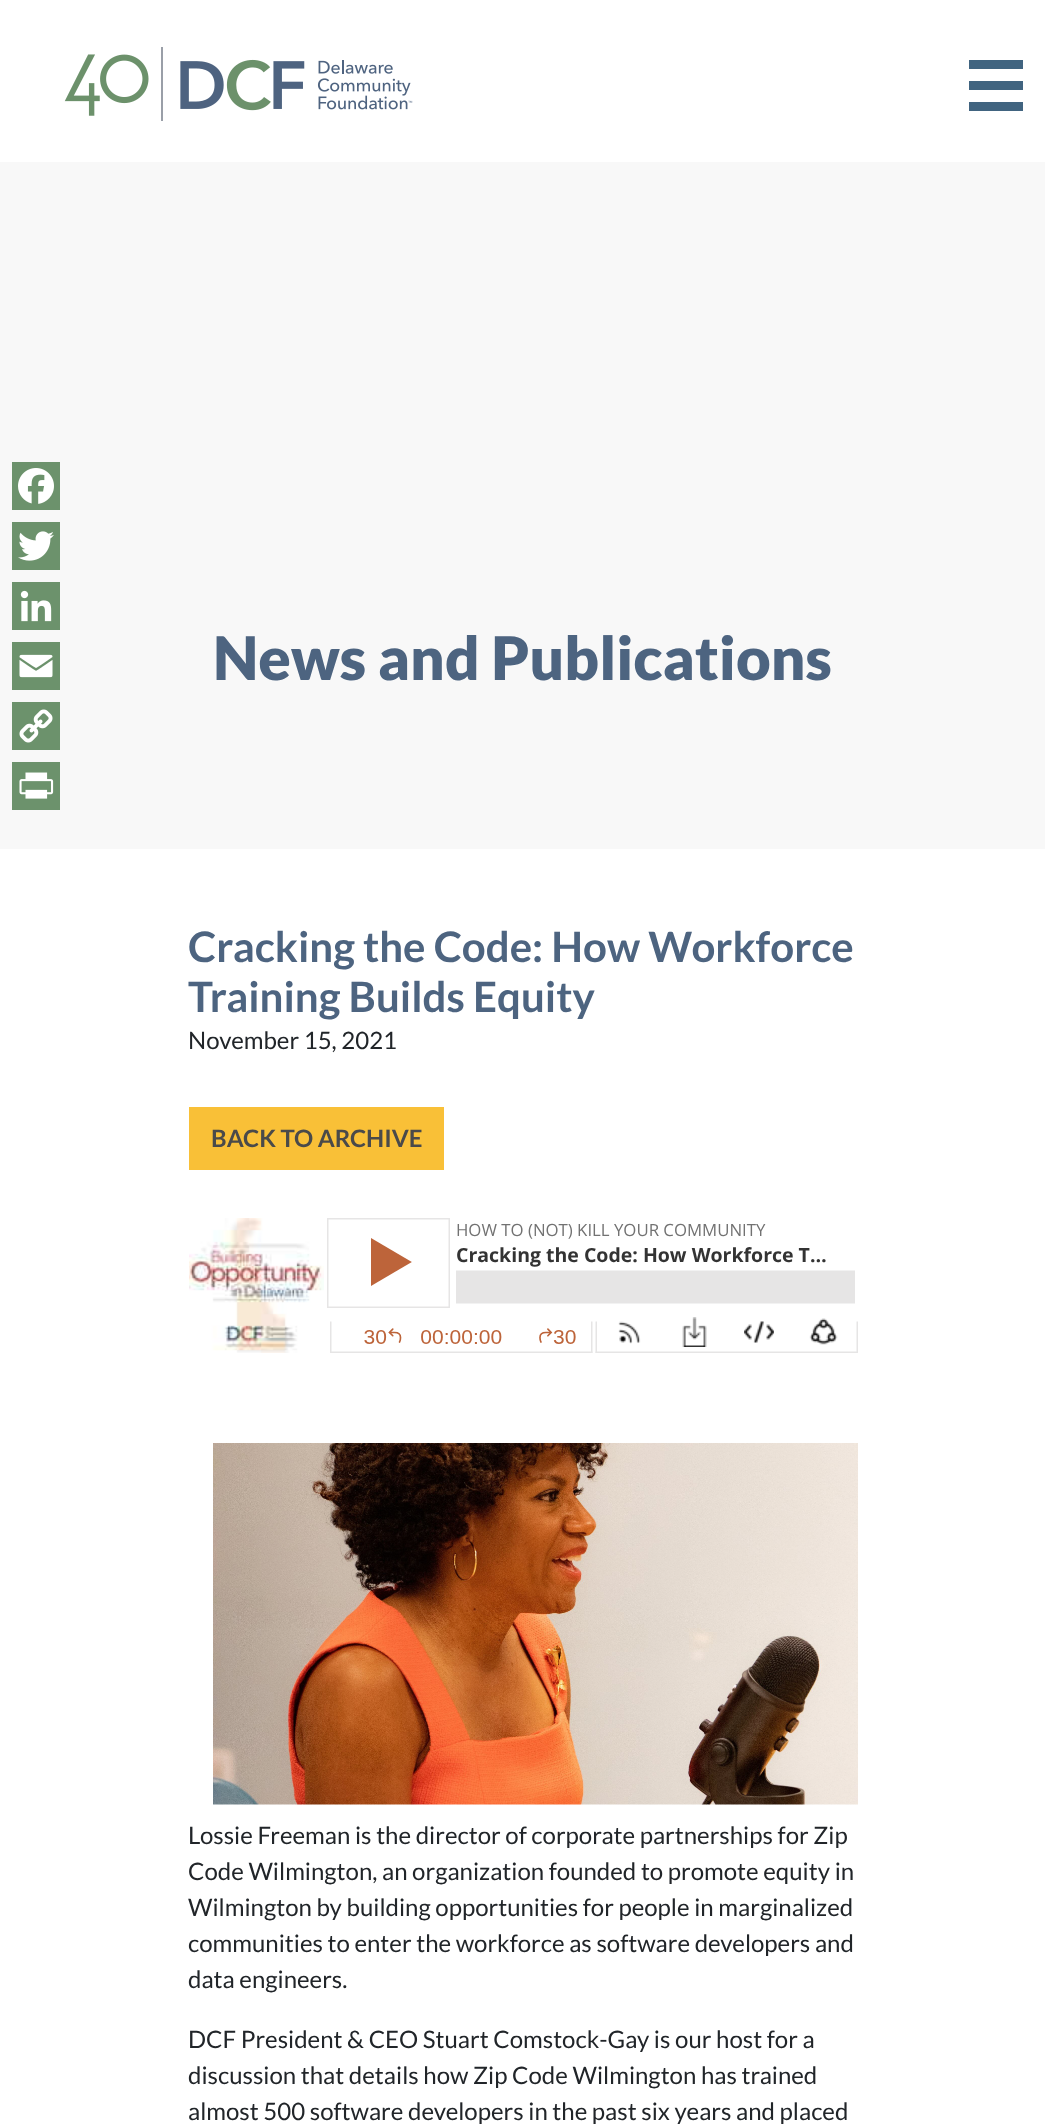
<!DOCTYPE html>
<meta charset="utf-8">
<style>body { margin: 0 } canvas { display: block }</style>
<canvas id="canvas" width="1045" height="2124"></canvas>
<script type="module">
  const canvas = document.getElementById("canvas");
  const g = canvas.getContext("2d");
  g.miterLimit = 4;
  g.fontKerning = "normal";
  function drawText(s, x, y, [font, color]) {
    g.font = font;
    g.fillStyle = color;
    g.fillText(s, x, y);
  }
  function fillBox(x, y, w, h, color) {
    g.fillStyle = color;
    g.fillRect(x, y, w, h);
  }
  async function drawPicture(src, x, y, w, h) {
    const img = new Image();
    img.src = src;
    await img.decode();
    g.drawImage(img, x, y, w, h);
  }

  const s1 = ["900 60px Lato", "#4D6480"];
  const s2 = ["bold 42px Lato", "#4D6480"];
  const s3 = ["24px Lato", "#212529"];
  const s4 = ["bold 24px Lato", "#4A4A4A"];

  fillBox(0, 0, 1045, 2124, "#FFFFFF");
  fillBox(0, 162, 1045, 687, "#F8F8F8");
  fillBox(12, 462, 48, 48, "#6C926C");
  await drawPicture("pic1.png", 18, 468, 36, 36);
  fillBox(12, 522, 48, 48, "#6C926C");
  await drawPicture("pic2.png", 18, 531, 36, 30);
  fillBox(12, 582, 48, 48, "#6C926C");
  await drawPicture("pic3.png", 20, 590, 32, 32);
  fillBox(12, 642, 48, 48, "#6C926C");
  await drawPicture("pic4.png", 19, 654, 34, 24);
  fillBox(12, 702, 48, 48, "#6C926C");
  await drawPicture("pic5.png", 19, 709, 34, 34);
  fillBox(12, 762, 48, 48, "#6C926C");
  await drawPicture("pic6.png", 19, 772, 35, 27);
  await drawPicture("pic7.png", 64, 47, 349, 74);
  fillBox(969, 81, 54, 9, "#416480");
  fillBox(969, 60, 54, 9, "#416480");
  fillBox(969, 102, 54, 9, "#416480");
  drawText("News and Publications", 213, 680, s1);
  drawText("Cracking the Code: How Workforce", 188, 962, s2);
  drawText("Training Builds Equity", 188, 1012, s2);
  drawText("November 15, 2021", 188, 1049, s3);
  fillBox(189, 1107, 255, 63, "#F9C037");
  drawText("BACK TO ARCHIVE", 211, 1147, s4);
  await drawPicture("pic8.png", 189, 1218, 669, 135);
  await drawPicture("pic9.png", 213, 1443, 645, 362);
  drawText("Lossie Freeman is the director of corporate partnerships for Zip", 188, 1844, s3);
  drawText("Code Wilmington, an organization founded to promote equity in", 188, 1880, s3);
  drawText("Wilmington by building opportunities for people in marginalized", 188, 1916, s3);
  drawText("communities to enter the workforce as software developers and", 188, 1952, s3);
  drawText("data engineers.", 188, 1988, s3);
  drawText("DCF President & CEO Stuart Comstock-Gay is our host for a", 188, 2048, s3);
  drawText("discussion that details how Zip Code Wilmington has trained", 188, 2084, s3);
  drawText("almost 500 software developers in the past six years and placed", 188, 2120, s3);
</script>
